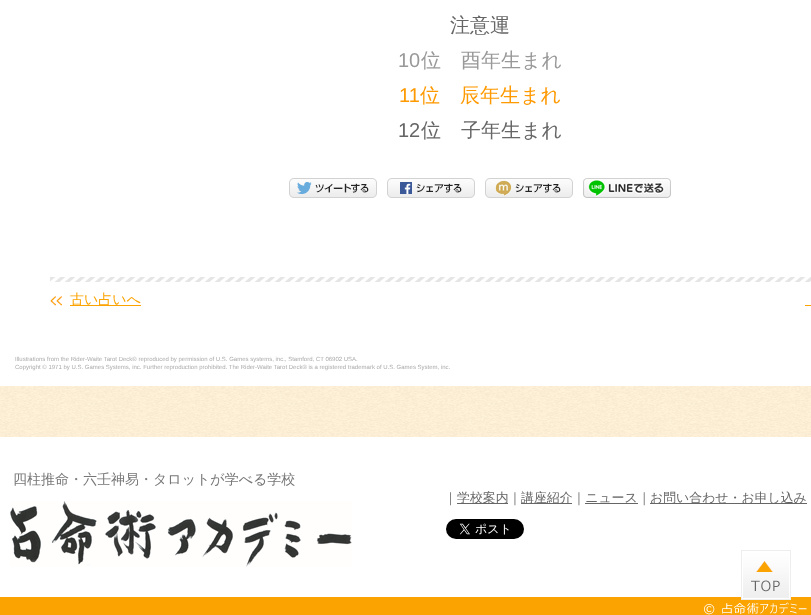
<!DOCTYPE html>
<meta charset="utf-8">
<style>body { margin: 0 } canvas { display: block }</style>
<canvas id="canvas" width="811" height="615"></canvas>
<script type="module">
  const canvas = document.getElementById("canvas");
  const g = canvas.getContext("2d");
  g.miterLimit = 4;
  g.fontKerning = "normal";
  function drawText(s, x, y, [font, color]) {
    g.font = font;
    g.fillStyle = color;
    g.fillText(s, x, y);
  }
  function fillBox(x, y, w, h, color) {
    g.fillStyle = color;
    g.fillRect(x, y, w, h);
  }
  async function drawPicture(src, x, y, w, h) {
    const img = new Image();
    img.src = src;
    await img.decode();
    g.drawImage(img, x, y, w, h);
  }

  const s1 = ["500 20px WenQuanYi Zen Hei", "#666666"];
  const s2 = ["20px Liberation Sans", "#999999"];
  const s3 = ["500 20px WenQuanYi Zen Hei", "#999999"];
  const s4 = ["20px Liberation Sans", "#FF9900"];
  const s5 = ["500 20px WenQuanYi Zen Hei", "#FF9900"];
  const s6 = ["20px Liberation Sans", "#666666"];
  const s7 = ["500 14px WenQuanYi Zen Hei", "#FBA300"];
  const s8 = ["6px Liberation Sans", "#AAAAAA"];
  const s9 = ["500 14px WenQuanYi Zen Hei", "#777777"];
  const s10 = ["500 12.9px WenQuanYi Zen Hei", "#666666"];

  fillBox(0, 0, 811, 615, "#FFFFFF");
  await drawPicture("pic1.png", 0, 386, 811, 51);
  await drawPicture("pic2.png", 50, 277, 761, 5);
  drawText("注意運", 450, 32, s1);
  drawText("10", 398, 67, s2);
  drawText("位　酉年生まれ", 421, 67, s3);
  drawText("11", 399, 102, s4);
  drawText("位　辰年生まれ", 420, 102, s5);
  drawText("12", 398, 137, s6);
  drawText("位　子年生まれ", 421, 137, s1);
  await drawPicture("pic3.png", 289, 178, 88, 20);
  await drawPicture("pic4.png", 387, 178, 88, 20);
  await drawPicture("pic5.png", 485, 178, 88, 20);
  await drawPicture("pic6.png", 583, 178, 88, 20);
  await drawPicture("pic7.png", 50, 296, 12, 10);
  fillBox(70, 305, 71, 1, "#FBA300");
  drawText("古い占いへ", 70, 304, s7);
  fillBox(805, 305, 6, 1, "#FBA300");
  drawText("Illustrations from the Rider-Waite Tarot Deck® reproduced by permission of U.S. Games systems, inc., Stamford, CT 06902 USA.", 15, 361, s8);
  drawText("Copyright © 1971 by U.S. Games Systems, inc. Further reproduction prohibited. The Rider-Waite Tarot Deck® is a registered trademark of U.S. Games System, inc.", 15, 369, s8);
  drawText("四柱推命・六壬神易・タロットが学べる学校", 13, 484, s9);
  await drawPicture("pic8.png", 10, 501, 342, 66);
  drawText("｜", 444, 502, s10);
  fillBox(457, 503, 51, 1, "#666666");
  drawText("学校案内｜", 457, 502, s10);
  fillBox(521, 503, 51, 1, "#666666");
  drawText("講座紹介｜ニュース｜", 521, 502, s10);
  fillBox(650, 503, 157, 1, "#666666");
  drawText("お問い合わせ・お申し込み", 650, 502, s10);
  fillBox(585, 503, 53, 1, "#666666");
  await drawPicture("pic9.png", 446, 519, 78, 20);
  fillBox(0, 597, 811, 18, "#FBA300");
  await drawPicture("pic10.png", 704, 602, 103, 13);
  await drawPicture("pic11.png", 741, 550, 50, 50);
</script>
